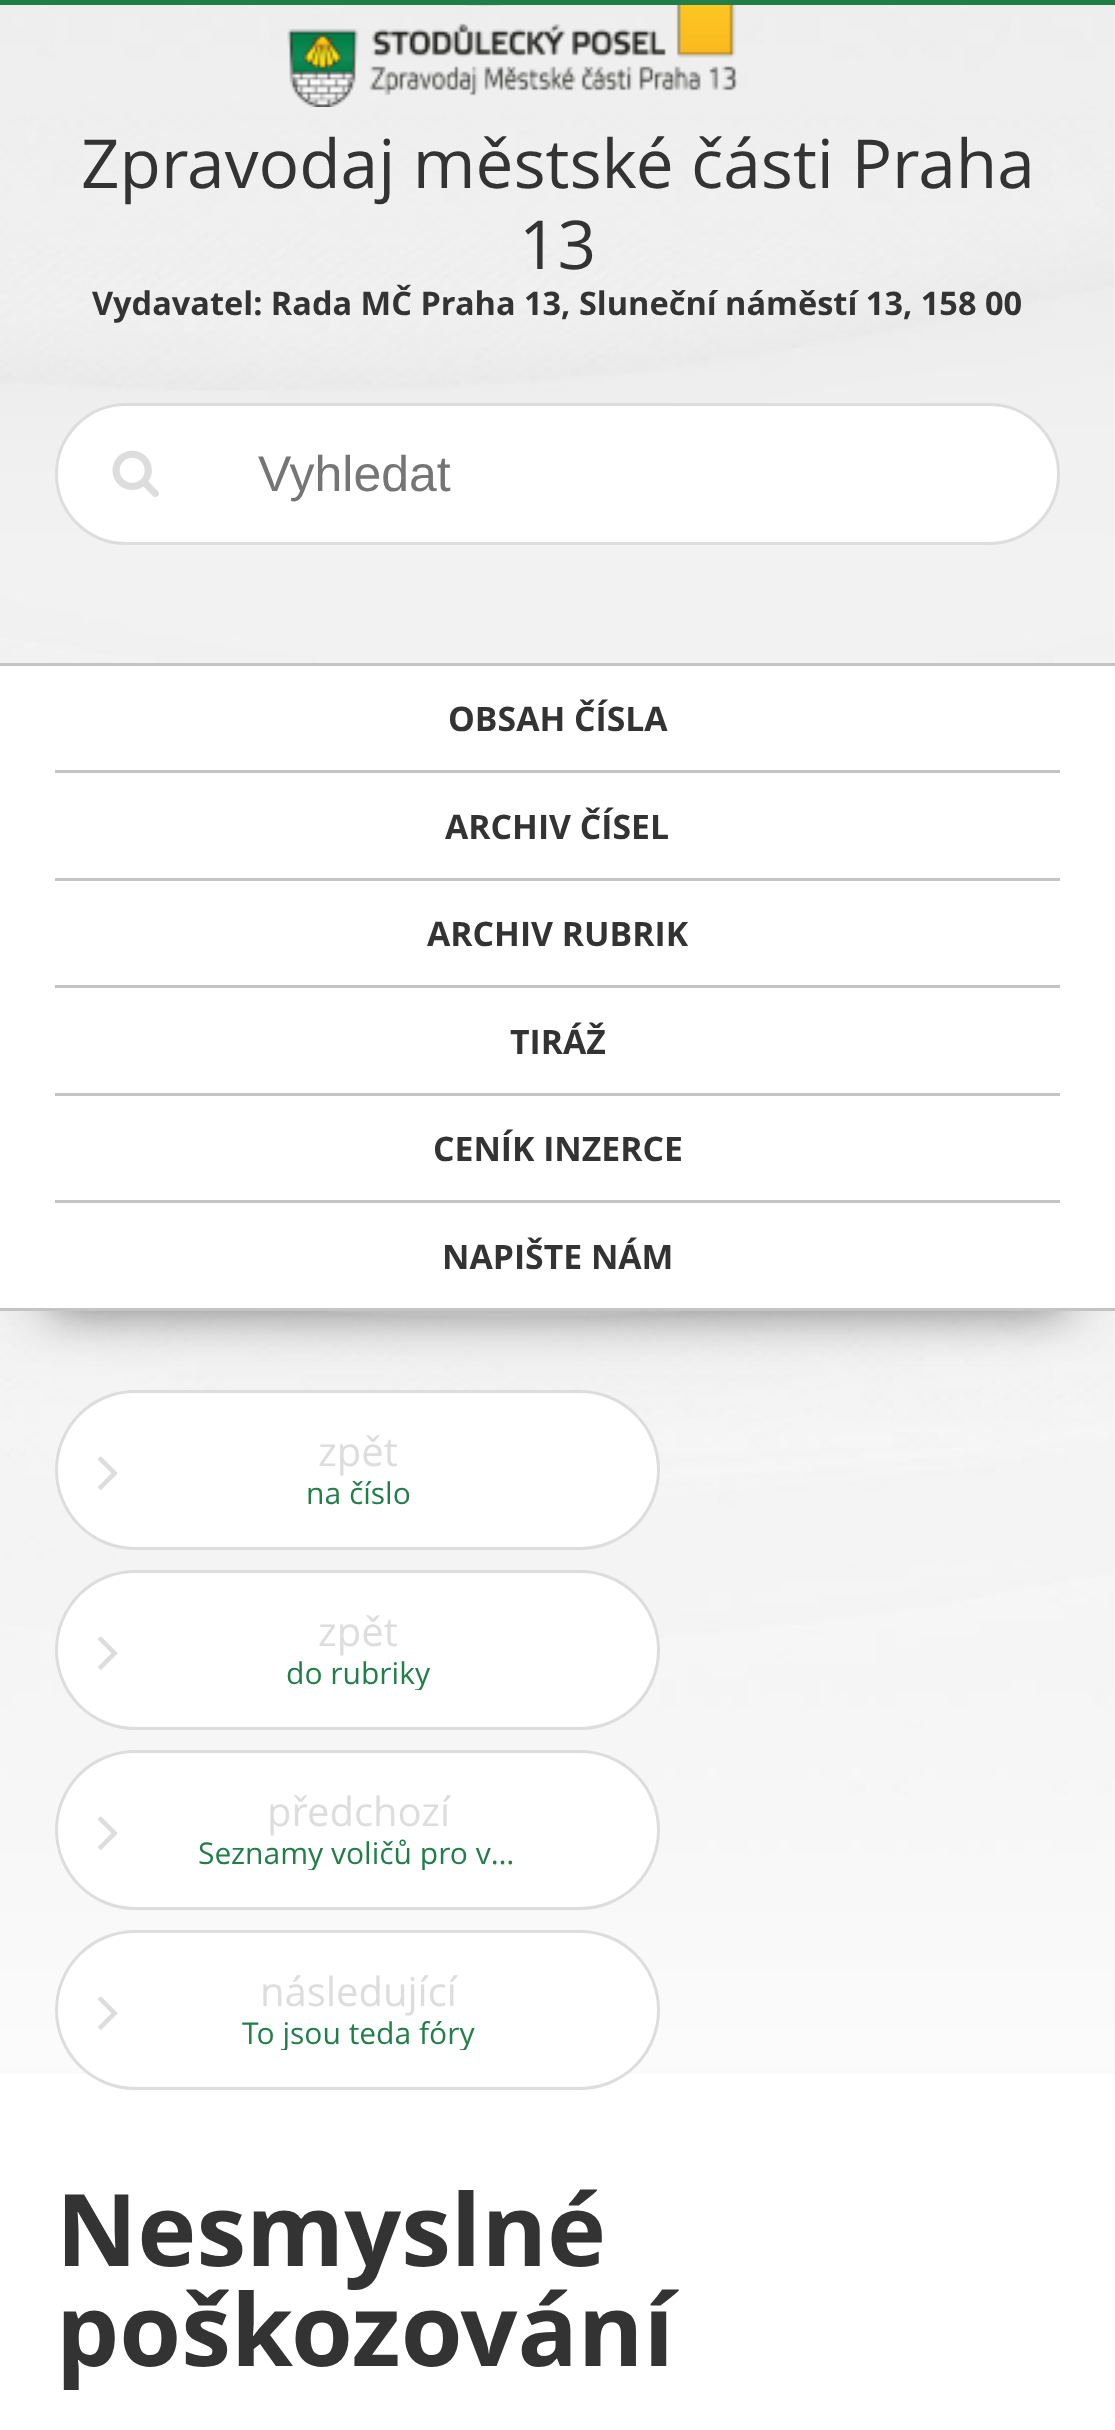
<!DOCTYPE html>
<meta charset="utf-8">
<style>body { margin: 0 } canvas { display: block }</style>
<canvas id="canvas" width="1115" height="2430"></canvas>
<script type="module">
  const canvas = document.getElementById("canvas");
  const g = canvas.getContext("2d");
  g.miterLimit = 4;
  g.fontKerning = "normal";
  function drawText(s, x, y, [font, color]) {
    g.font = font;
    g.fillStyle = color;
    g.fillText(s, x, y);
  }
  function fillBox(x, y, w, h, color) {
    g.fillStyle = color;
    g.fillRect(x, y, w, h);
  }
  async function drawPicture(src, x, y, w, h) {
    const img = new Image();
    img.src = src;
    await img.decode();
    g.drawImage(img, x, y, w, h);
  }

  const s1 = ["67.5px Open Sans", "#333333"];
  const s2 = ["bold 32.5px Open Sans", "#333333"];
  const s3 = ["50px Liberation Sans", "#757575"];
  const s4 = ["bold 33.75px Open Sans", "#333333"];
  const s5 = ["40px Open Sans", "#DDDDDD"];
  const s6 = ["30px Open Sans", "#227E48"];
  const s7 = ["bold 100px Open Sans", "#333333"];

  fillBox(0, 0, 1115, 2430, "#FFFFFF");
  await drawPicture("pic1.png", 0, 5, 1115, 2069);
  fillBox(0, 0, 1115, 5, "#227E48");
  await drawPicture("pic2.png", 287, 5, 451, 102);
  drawText("Zpravodaj městské části Praha", 81, 188, s1);
  drawText("13", 519, 269, s1);
  drawText("Vydavatel: Rada MČ Praha 13, Sluneční náměstí 13, 158 00", 92, 315, s2);
  g.fillStyle = "#FFFFFF";
  g.beginPath();
  g.roundRect(56.5, 404.5, 1002, 139, 69.5);
  g.fill();
  g.strokeStyle = "#DDDDDD";
  g.lineWidth = 3;
  g.stroke();
  await drawPicture("pic3.png", 112, 450, 47, 47);
  drawText("Vyhledat", 258, 491, s3);
  g.fillStyle = "rgba(0, 0, 0, 0.5)";
  g.filter = "blur(25px)";
  g.beginPath();
  g.rect(50, 763, 1015, 547);
  g.fill();
  g.filter = "none";
  fillBox(0, 666, 1115, 642, "#FFFFFF");
  fillBox(0, 663, 1115, 3, "#C4C4C4");
  fillBox(0, 1308, 1115, 3, "#C4C4C4");
  drawText("OBSAH ČÍSLA", 448, 731, s4);
  fillBox(55, 770, 1005, 3, "#C4C4C4");
  drawText("ARCHIV ČÍSEL", 445, 839, s4);
  fillBox(55, 878, 1005, 3, "#C4C4C4");
  drawText("ARCHIV RUBRIK", 427, 946, s4);
  fillBox(55, 985, 1005, 3, "#C4C4C4");
  drawText("TIRÁŽ", 510, 1054, s4);
  fillBox(55, 1093, 1005, 3, "#C4C4C4");
  drawText("CENÍK INZERCE", 433, 1161, s4);
  fillBox(55, 1200, 1005, 3, "#C4C4C4");
  drawText("NAPIŠTE NÁM", 442, 1269, s4);
  g.fillStyle = "#FFFFFF";
  g.beginPath();
  g.roundRect(56.5, 1391.5, 602, 157, 78.5);
  g.fill();
  g.stroke();
  await drawPicture("pic4.png", 98, 1456, 20, 34);
  drawText("zpět", 318, 1466, s5);
  drawText("na číslo", 306, 1504, s6);
  g.fillStyle = "#FFFFFF";
  g.beginPath();
  g.roundRect(56.5, 1571.5, 602, 157, 78.5);
  g.fill();
  g.stroke();
  await drawPicture("pic4.png", 98, 1636, 20, 34);
  drawText("zpět", 318, 1646, s5);
  g.save();
  g.beginPath();
  g.rect(198, 1650, 320, 40);
  g.clip();
  drawText("do rubriky", 286, 1684, s6);
  g.restore();
  g.fillStyle = "#FFFFFF";
  g.beginPath();
  g.roundRect(56.5, 1751.5, 602, 157, 78.5);
  g.fill();
  g.stroke();
  await drawPicture("pic4.png", 98, 1816, 20, 34);
  drawText("předchozí", 267, 1826, s5);
  g.save();
  g.beginPath();
  g.rect(198, 1830, 320, 40);
  g.clip();
  drawText("Seznamy voličů pro v…", 198, 1864, s6);
  g.restore();
  g.fillStyle = "#FFFFFF";
  g.beginPath();
  g.roundRect(56.5, 1931.5, 602, 157, 78.5);
  g.fill();
  g.stroke();
  await drawPicture("pic4.png", 98, 1996, 20, 34);
  drawText("následující", 260, 2006, s5);
  g.save();
  g.beginPath();
  g.rect(198, 2010, 320, 40);
  g.clip();
  drawText("To jsou teda fóry", 242, 2044, s6);
  g.restore();
  drawText("Nesmyslné", 56, 2266, s7);
  drawText("poškozování", 56, 2366, s7);
</script>
